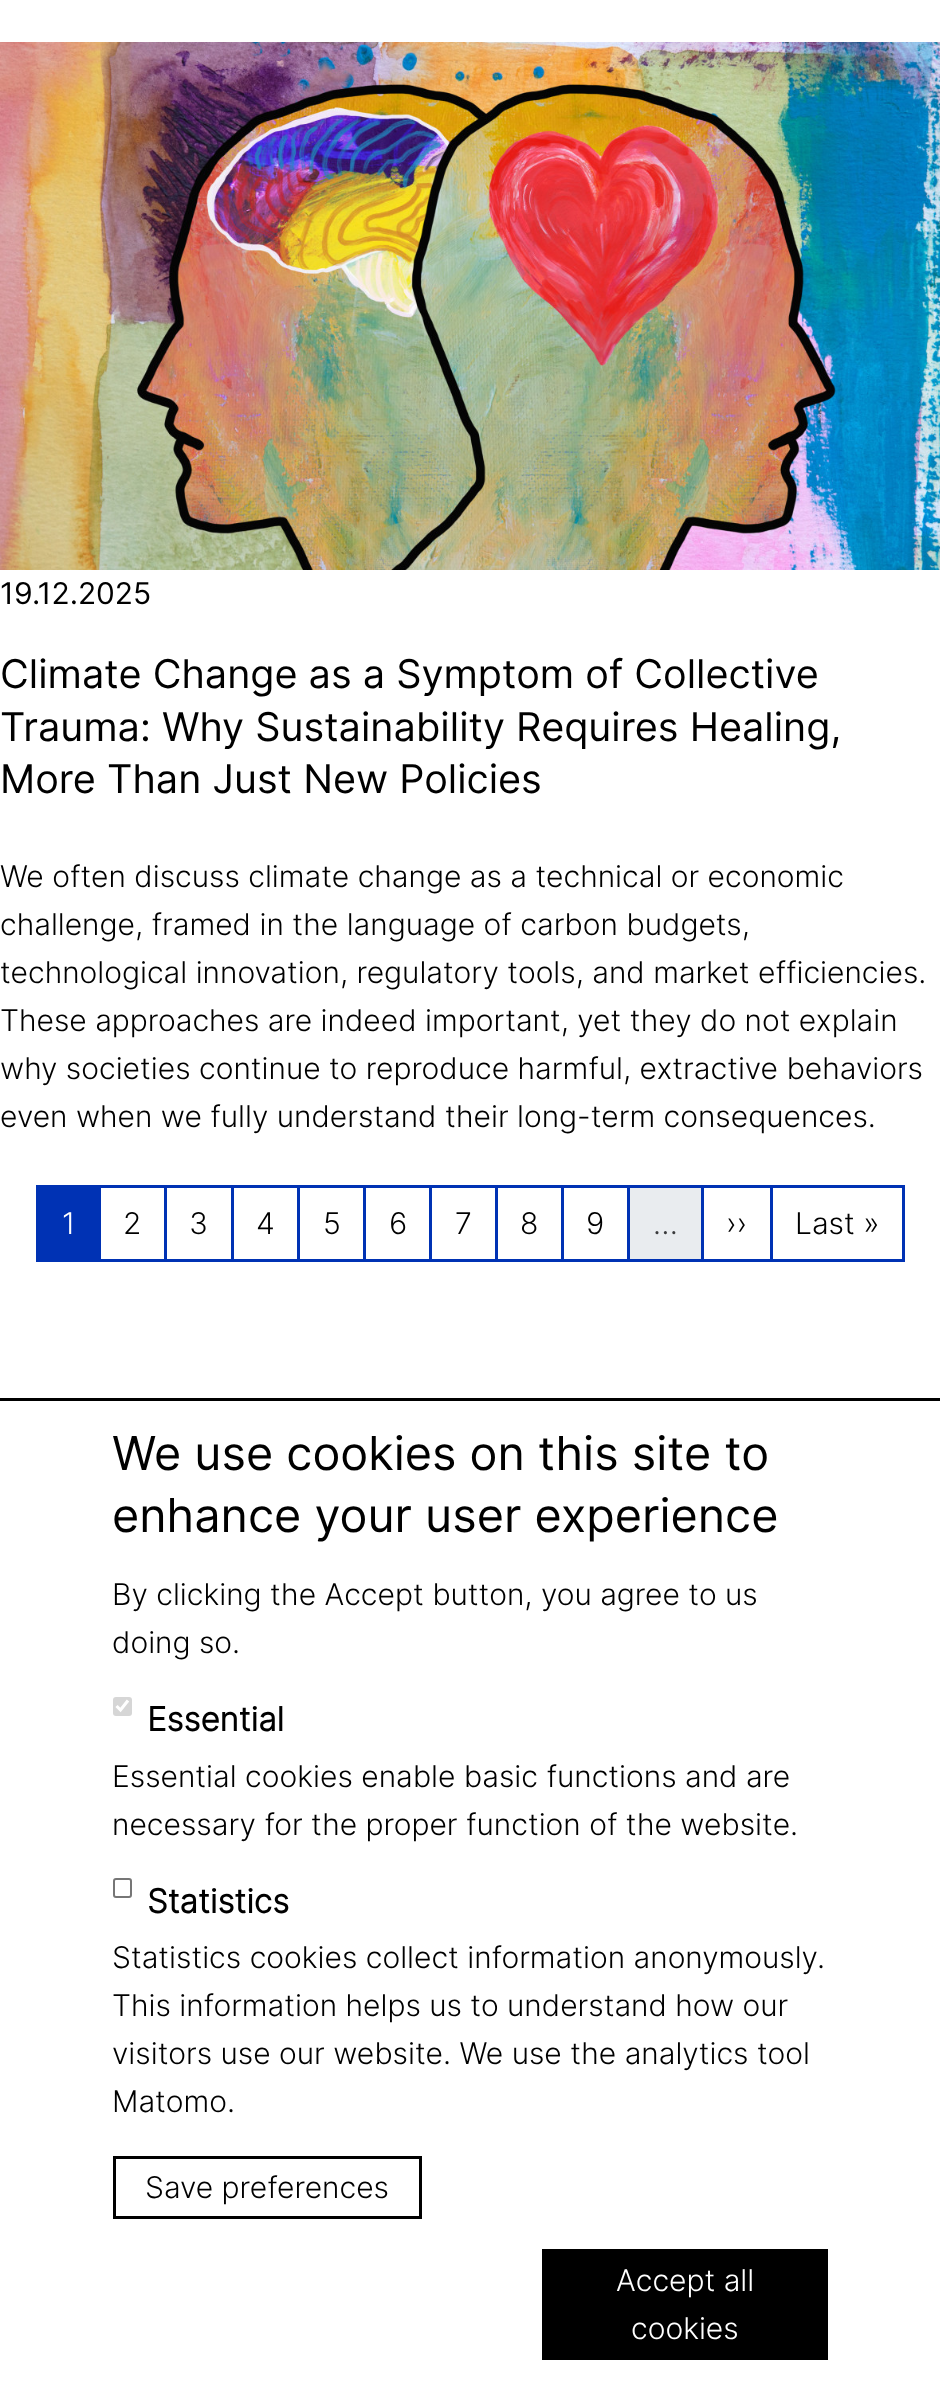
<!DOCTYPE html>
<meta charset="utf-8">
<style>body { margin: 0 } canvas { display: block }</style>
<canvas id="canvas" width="940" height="2382"></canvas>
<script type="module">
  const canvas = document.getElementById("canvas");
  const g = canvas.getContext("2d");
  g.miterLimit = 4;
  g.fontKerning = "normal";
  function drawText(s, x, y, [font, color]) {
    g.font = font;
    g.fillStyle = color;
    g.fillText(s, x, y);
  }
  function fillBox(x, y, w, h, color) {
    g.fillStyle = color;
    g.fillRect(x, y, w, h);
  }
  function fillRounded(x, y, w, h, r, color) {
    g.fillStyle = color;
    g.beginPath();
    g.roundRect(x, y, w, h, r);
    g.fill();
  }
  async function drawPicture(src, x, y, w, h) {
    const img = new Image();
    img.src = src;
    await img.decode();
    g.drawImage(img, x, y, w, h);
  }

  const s1 = ["30px Inter", "#000000"];
  const s2 = ["39.6px Inter", "#000000"];
  const s3 = ["300 30px Inter", "#000000"];
  const s4 = ["300 30px Inter", "#FFFFFF"];
  const s5 = ["300 30px Inter", "#3A3B3C"];
  const s6 = ["46.75px Inter", "#000000"];
  const s7 = ["bold 33px Inter", "#000000"];

  fillBox(0, 0, 940, 2382, "#FFFFFF");
  await drawPicture("pic1.png", 0, 42, 940, 528);
  drawText("19.12.2025", 0, 604, s1);
  drawText("Climate Change as a Symptom of Collective", 0, 688, s2);
  drawText("Trauma: Why Sustainability Requires Healing,", 0, 741, s2);
  drawText("More Than Just New Policies", 0, 793, s2);
  drawText("We often discuss climate change as a technical or economic", 0, 887, s3);
  drawText("challenge, framed in the language of carbon budgets,", 0, 935, s3);
  drawText("technological innovation, regulatory tools, and market efficiencies.", 0, 983, s3);
  drawText("These approaches are indeed important, yet they do not explain", 0, 1031, s3);
  drawText("why societies continue to reproduce harmful, extractive behaviors", 0, 1079, s3);
  drawText("even when we fully understand their long-term consequences.", 0, 1127, s3);
  fillBox(36, 1185, 62, 77, "#0032B4");
  drawText("1", 62, 1234, s4);
  g.strokeStyle = "#0032B4";
  g.lineWidth = 3;
  g.strokeRect(99.5, 1186.5, 66, 74);
  drawText("2", 123, 1234, s3);
  g.strokeRect(165.5, 1186.5, 67, 74);
  drawText("3", 189, 1234, s3);
  g.strokeRect(232.5, 1186.5, 66, 74);
  drawText("4", 256, 1234, s3);
  g.strokeRect(298.5, 1186.5, 66, 74);
  drawText("5", 323, 1234, s3);
  g.strokeRect(364.5, 1186.5, 66, 74);
  drawText("6", 389, 1234, s3);
  g.strokeRect(430.5, 1186.5, 66, 74);
  drawText("7", 455, 1234, s3);
  g.strokeRect(496.5, 1186.5, 66, 74);
  drawText("8", 520, 1234, s3);
  g.strokeRect(562.5, 1186.5, 66, 74);
  drawText("9", 586, 1234, s3);
  g.fillStyle = "#E9ECEF";
  g.beginPath();
  g.rect(628.5, 1186.5, 74, 74);
  g.fill();
  g.stroke();
  g.strokeRect(702.5, 1186.5, 69, 74);
  drawText("››", 726, 1234, s3);
  g.strokeRect(771.5, 1186.5, 132, 74);
  drawText("Last »", 795, 1234, s3);
  drawText("…", 653, 1234, s5);
  fillBox(0, 1398, 940, 3, "#000000");
  drawText("We use cookies on this site to", 112, 1470, s6);
  drawText("enhance your user experience", 112, 1532, s6);
  drawText("By clicking the Accept button, you agree to us", 112, 1605, s3);
  drawText("doing so.", 112, 1653, s3);
  fillRounded(113, 1697, 19, 19, 3, "#D6D6D6");
  g.beginPath();
  g.moveTo(116.5, 1706);
  g.lineTo(120.5, 1710);
  g.lineTo(128, 1700.5);
  g.strokeStyle = "#FFFFFF";
  g.lineWidth = 3.1;
  g.stroke();
  drawText("Essential", 147, 1731, s7);
  drawText("Essential cookies enable basic functions and are", 112, 1787, s3);
  drawText("necessary for the proper function of the website.", 112, 1835, s3);
  g.beginPath();
  g.roundRect(114, 1879, 17, 18, 2);
  g.strokeStyle = "#767676";
  g.lineWidth = 2;
  g.stroke();
  drawText("Statistics", 147, 1913, s7);
  drawText("Statistics cookies collect information anonymously.", 112, 1968, s3);
  drawText("This information helps us to understand how our", 112, 2016, s3);
  drawText("visitors use our website. We use the analytics tool", 112, 2064, s3);
  drawText("Matomo.", 112, 2112, s3);
  g.strokeStyle = "#000000";
  g.lineWidth = 3;
  g.strokeRect(114.5, 2157.5, 306, 60);
  drawText("Save preferences", 145, 2198, s3);
  fillBox(542, 2249, 286, 111, "#000000");
  drawText("Accept all", 616, 2291, s4);
  drawText("cookies", 631, 2339, s4);
</script>
